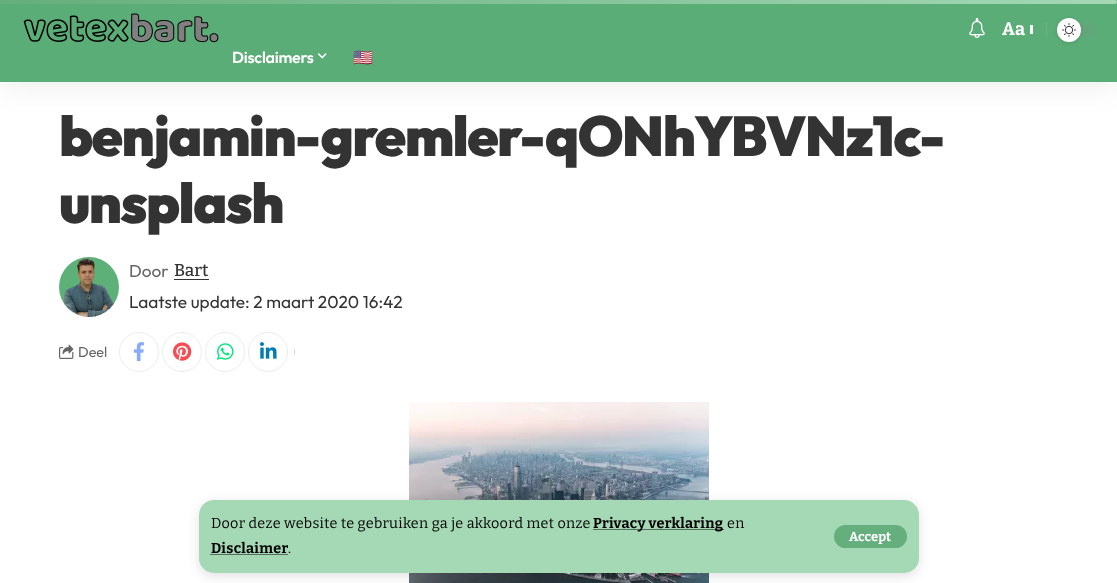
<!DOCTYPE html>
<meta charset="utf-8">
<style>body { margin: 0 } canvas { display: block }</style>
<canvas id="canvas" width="1117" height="583"></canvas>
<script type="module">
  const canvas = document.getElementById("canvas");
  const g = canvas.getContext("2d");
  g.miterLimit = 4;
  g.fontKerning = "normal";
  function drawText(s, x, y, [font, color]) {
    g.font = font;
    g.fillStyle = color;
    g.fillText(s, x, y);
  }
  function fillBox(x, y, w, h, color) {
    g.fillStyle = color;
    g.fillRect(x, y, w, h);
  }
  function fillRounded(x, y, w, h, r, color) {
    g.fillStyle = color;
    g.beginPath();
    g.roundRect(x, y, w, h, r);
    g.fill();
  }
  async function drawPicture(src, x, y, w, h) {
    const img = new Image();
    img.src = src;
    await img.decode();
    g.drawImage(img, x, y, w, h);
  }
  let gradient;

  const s1 = ["bold 18px Bitter", "#FFFFFF"];
  const s2 = ["600 16px Outfit", "#FFFFFF"];
  const s3 = ["bold 16px Noto Color Emoji", "#FFFFFF"];
  const s4 = ["14.4px Bitter", "#000000"];
  const s5 = ["bold 14.4px Bitter", "#000000"];
  const s6 = ["bold 13px Bitter", "#FFFFFF"];
  const s7 = ["900 56px Outfit", "#333333"];
  const s8 = ["17.25px Outfit", "#666666"];
  const s9 = ["500 17.25px Bitter", "#333333"];
  const s10 = ["17.25px Outfit", "#333333"];
  const s11 = ["14.4px Outfit", "#666666"];

  fillBox(0, 0, 1117, 583, "#FFFFFF");
  g.fillStyle = "rgba(0, 0, 0, 0.07)";
  g.filter = "blur(15px)";
  g.beginPath();
  g.rect(0, -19, 1117, 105);
  g.fill();
  g.filter = "none";
  fillBox(0, 0, 1117, 82, "#5BAD77");
  gradient = g.createLinearGradient(0, 2, 1117, 2);
  gradient.addColorStop(0, "#65AE7D");
  gradient.addColorStop(1, "#A5D8B5");
  g.fillStyle = gradient;
  g.beginPath();
  g.roundRect(0, 0, 1117, 4, [0, 2, 2, 0]);
  g.fill();
  await drawPicture("pic1.png", 23, 13, 196, 30);
  await drawPicture("pic2.png", 969, 18, 16, 20);
  g.letterSpacing = "0.3px";
  drawText("Aa", 1002, 35, s1);
  fillBox(1030, 25, 3, 9, "#FFFFFF");
  fillBox(1046, 23, 1, 14, "#6BB585");
  fillRounded(1057, 23, 40, 14, 7, "#62A77A");
  g.fillStyle = "rgba(0, 0, 0, 0.12)";
  g.filter = "blur(2px)";
  g.beginPath();
  g.roundRect(1057, 19, 24, 24, 12);
  g.fill();
  g.filter = "none";
  g.fillStyle = "#FFFFFF";
  g.beginPath();
  g.arc(1069, 30, 12, 0, Math.PI * 2);
  g.fill();
  await drawPicture("pic3.png", 1062, 23, 14, 14);
  g.letterSpacing = "-0.25px";
  drawText("Disclaimers", 232, 63, s2);
  await drawPicture("pic4.png", 317, 53, 10, 6);
  drawText("🇺🇸", 353, 63, s3);
  await drawPicture("pic11.png", 409, 402, 300, 181);
  g.fillStyle = "rgba(0, 0, 0, 0.12)";
  g.filter = "blur(6px)";
  g.beginPath();
  g.roundRect(199, 503, 720, 73, 15);
  g.fill();
  g.filter = "none";
  fillRounded(199, 500, 720, 73, 15, "#A5D8B5");
  g.letterSpacing = "0.3px";
  drawText("Door deze website te gebruiken ga je akkoord met onze", 211, 528, s4);
  g.beginPath();
  g.moveTo(593.5, 529.5);
  g.lineTo(724, 529.5);
  g.strokeStyle = "#000000";
  g.setLineDash([1, 1]);
  g.stroke();
  drawText("Privacy verklaring", 593, 528, s5);
  drawText("en", 727, 528, s4);
  drawText("Disclaimer", 211, 553, s5);
  g.beginPath();
  g.moveTo(210.5, 554.5);
  g.lineTo(288, 554.5);
  g.stroke();
  drawText(".", 288, 553, s4);
  fillRounded(834, 525, 73, 23, 11.5, "#65AE7D");
  g.letterSpacing = "0px";
  drawText("Accept", 849, 541, s6);
  g.letterSpacing = "-1.6px";
  drawText("benjamin-gremler-qONhYBVNz1c-", 59, 156, s7);
  drawText("unsplash", 59, 223, s7);
  await drawPicture("pic5.png", 59, 257, 60, 60);
  g.letterSpacing = "0px";
  drawText("Door", 129, 277, s8);
  drawText("Bart", 174, 276, s9);
  fillBox(174, 279, 35, 1, "#333333");
  drawText("Laatste update: 2 maart 2020 16:42", 129, 308, s10);
  await drawPicture("pic6.png", 59, 344, 15, 15);
  drawText("Deel", 78, 357, s11);
  g.beginPath();
  g.arc(139, 352, 19.5, 0, Math.PI * 2);
  g.strokeStyle = "#EDEDED";
  g.setLineDash([]);
  g.stroke();
  await drawPicture("pic7.png", 133, 342, 11, 19);
  g.beginPath();
  g.arc(182, 352, 19.5, 0, Math.PI * 2);
  g.stroke();
  await drawPicture("pic8.png", 173, 342, 19, 19);
  g.beginPath();
  g.arc(225, 352, 19.5, 0, Math.PI * 2);
  g.stroke();
  await drawPicture("pic9.png", 217, 343, 17, 17);
  g.beginPath();
  g.arc(268, 352, 19.5, 0, Math.PI * 2);
  g.stroke();
  await drawPicture("pic10.png", 260, 342, 17, 17);
  fillBox(294, 349, 1, 6, "#D9D9D9");
</script>
